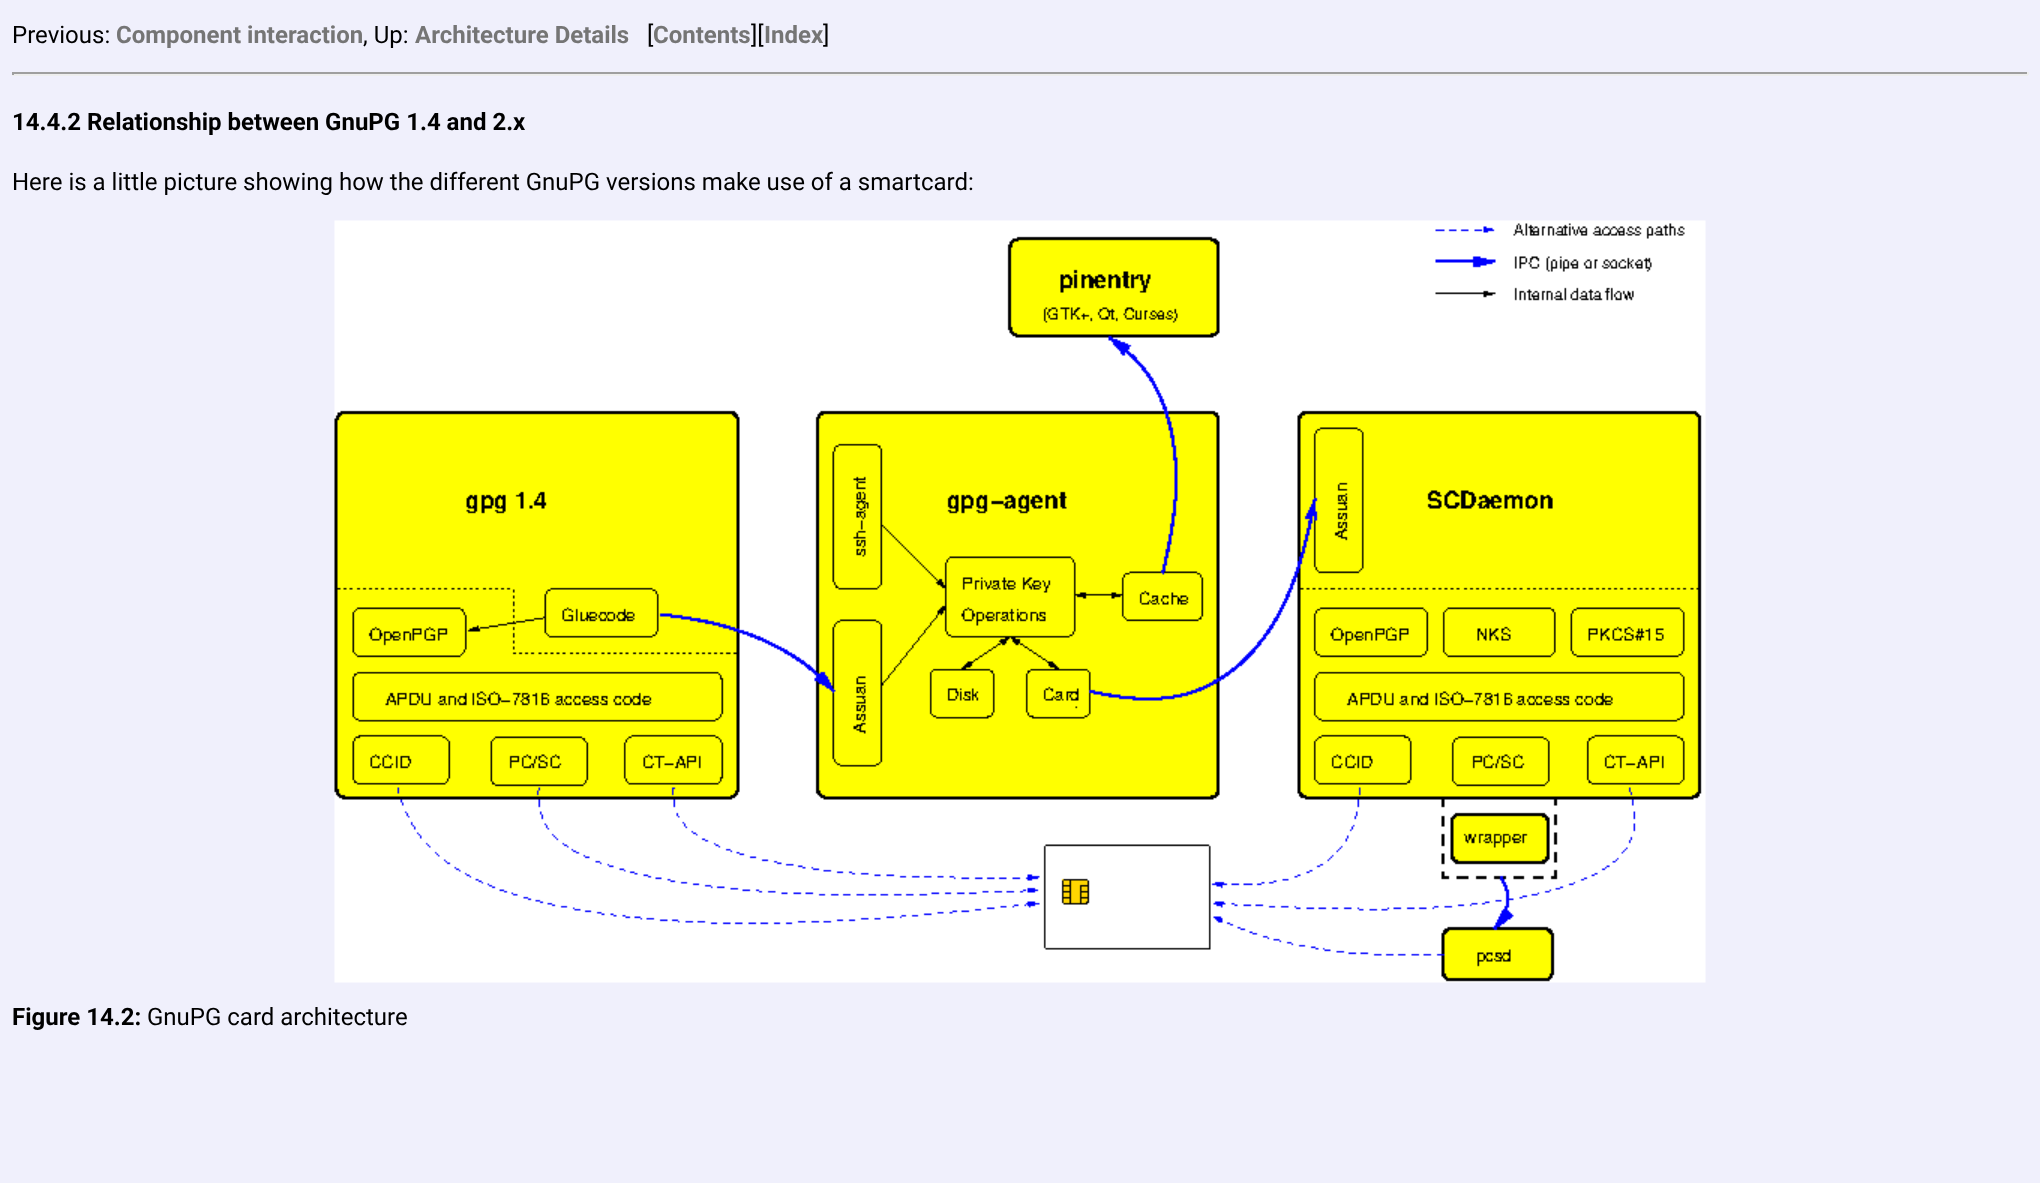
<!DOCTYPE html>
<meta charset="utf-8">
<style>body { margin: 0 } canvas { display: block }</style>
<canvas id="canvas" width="2040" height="1183"></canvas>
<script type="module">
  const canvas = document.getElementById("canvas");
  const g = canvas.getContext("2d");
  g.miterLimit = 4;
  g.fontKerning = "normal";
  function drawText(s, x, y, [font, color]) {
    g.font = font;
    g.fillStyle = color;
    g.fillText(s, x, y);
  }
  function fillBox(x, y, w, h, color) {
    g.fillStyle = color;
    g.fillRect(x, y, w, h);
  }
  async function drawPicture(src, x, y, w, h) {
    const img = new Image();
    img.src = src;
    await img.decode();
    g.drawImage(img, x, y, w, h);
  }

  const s1 = ["24px Roboto", "#000000"];
  const s2 = ["bold 24px Roboto", "#757575"];
  const s3 = ["bold 24px Roboto", "#000000"];

  fillBox(0, 0, 2040, 1183, "#F0F0FC");
  drawText("Previous:", 12, 43, s1);
  drawText("Component interaction", 116, 43, s2);
  drawText(", Up:", 363, 43, s1);
  drawText("Architecture Details", 415, 43, s2);
  drawText("[", 647, 43, s1);
  drawText("Contents", 653, 43, s2);
  drawText("][", 751, 43, s1);
  drawText("Index", 764, 43, s2);
  drawText("]", 823, 43, s1);
  fillBox(12, 72, 2016, 2, "#9F9F9F");
  fillBox(2027, 72, 2, 3, "#EEEEEE");
  fillBox(12, 74, 2016, 2, "#EEEEEE");
  fillBox(12, 72, 2, 3, "#9F9F9F");
  drawText("14.4.2 Relationship between GnuPG 1.4 and 2.x", 12, 130, s3);
  drawText("Here is a little picture showing how the different GnuPG versions make use of a smartcard:", 12, 190, s1);
  await drawPicture("pic1.png", 334, 220, 1372, 763);
  drawText("Figure 14.2:", 12, 1025, s3);
  drawText("GnuPG card architecture", 147, 1025, s1);
</script>
